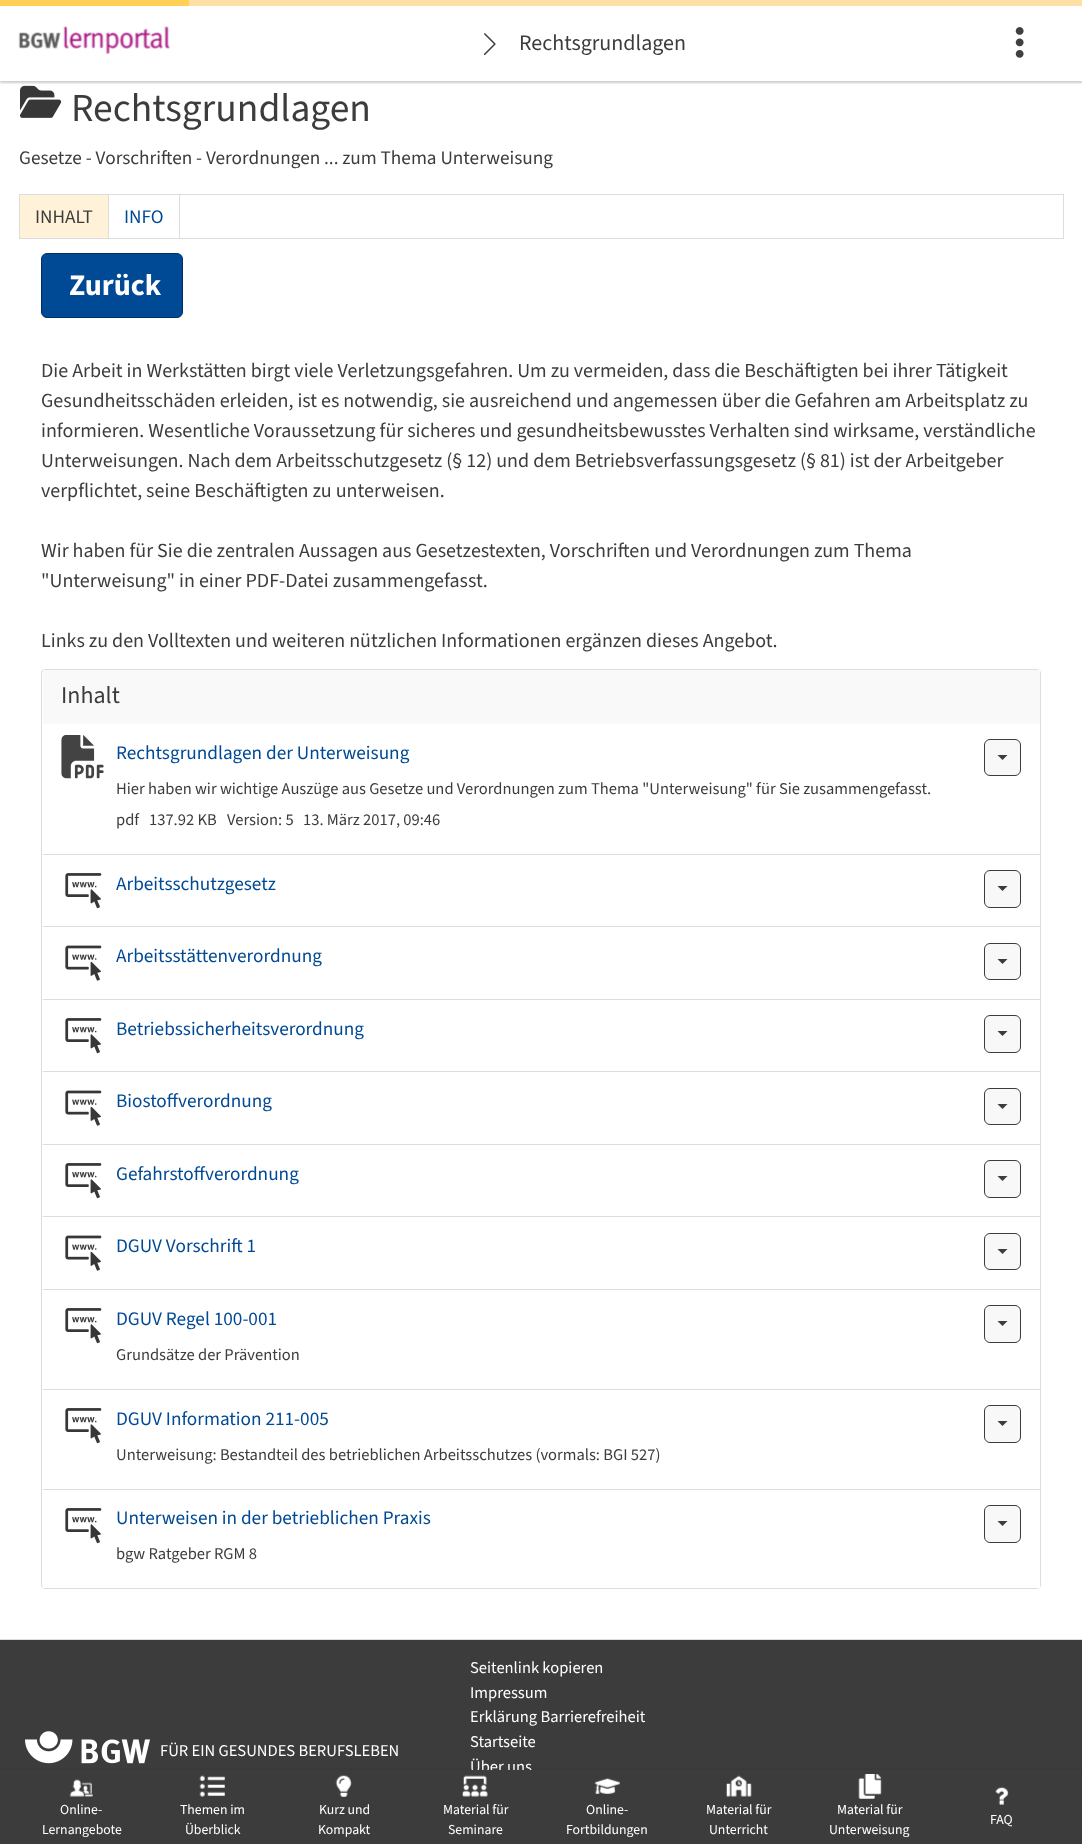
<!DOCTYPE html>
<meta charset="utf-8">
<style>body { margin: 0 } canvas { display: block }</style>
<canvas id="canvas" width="1082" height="1844"></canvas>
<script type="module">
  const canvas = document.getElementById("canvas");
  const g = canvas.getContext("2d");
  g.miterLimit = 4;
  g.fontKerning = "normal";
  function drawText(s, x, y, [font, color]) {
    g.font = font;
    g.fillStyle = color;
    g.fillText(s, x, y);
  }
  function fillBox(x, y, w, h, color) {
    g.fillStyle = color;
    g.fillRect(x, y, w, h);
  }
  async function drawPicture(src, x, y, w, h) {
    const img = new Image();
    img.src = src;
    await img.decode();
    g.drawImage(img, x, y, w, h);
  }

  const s1 = ["22px 'Source Sans 3'", "#3C3C3C"];
  const s2 = ["39.5px 'Source Sans 3'", "#3C3C3C"];
  const s3 = ["19.25px 'Source Sans 3'", "#3C3C3C"];
  const s4 = ["19.25px 'Source Sans 3'", "#004994"];
  const s5 = ["bold 30px 'Source Sans 3'", "#FFFFFF"];
  const s6 = ["20px 'Source Sans 3'", "#3C3C3C"];
  const s7 = ["24px 'Source Sans 3'", "#3C3C3C"];
  const s8 = ["16.5px 'Source Sans 3'", "#3C3C3C"];
  const s9 = ["16.5px 'Source Sans 3'", "#FFFFFF"];
  const s10 = ["13.75px 'Source Sans 3'", "#FFFFFF"];

  fillBox(0, 0, 1082, 1844, "#FFFFFF");
  await drawPicture("pic4.png", 20, 85, 42, 33);
  g.save();
  g.beginPath();
  g.rect(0, 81, 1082, 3);
  g.clip();
  g.fillStyle = "rgba(0, 0, 0, 0.1)";
  g.filter = "blur(1px)";
  g.beginPath();
  g.rect(0, 1, 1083, 82);
  g.fill();
  g.filter = "none";
  g.restore();
  fillBox(189, 0, 893, 6, "#FEE0A6");
  g.save();
  g.beginPath();
  g.rect(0, 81, 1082, 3);
  g.clip();
  g.fillStyle = "rgba(0, 0, 0, 0.1)";
  g.filter = "blur(1px)";
  g.beginPath();
  g.rect(0, 8, 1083, 75);
  g.fill();
  g.filter = "none";
  g.restore();
  fillBox(0, 0, 189, 6, "#FFD054");
  await drawPicture("pic1.png", 18, 26, 152, 29);
  await drawPicture("pic2.png", 483, 33, 13, 23);
  drawText("Rechtsgrundlagen", 519, 50, s1);
  await drawPicture("pic3.png", 1015, 27, 9, 31);
  drawText("Rechtsgrundlagen", 71, 121, s2);
  drawText("Gesetze - Vorschriften - Verordnungen ... zum Thema Unterweisung", 19, 164, s3);
  g.strokeStyle = "#DDDDDD";
  g.strokeRect(19.5, 194.5, 1044, 44);
  fillBox(20, 195, 88, 43, "#FFF2D8");
  fillBox(108, 195, 1, 43, "#DDDDDD");
  drawText("INHALT", 35, 223, s3);
  fillBox(179, 195, 1, 43, "#DDDDDD");
  drawText("INFO", 124, 223, s4);
  g.beginPath();
  g.roundRect(41.5, 253.5, 141, 64, 5.5);
  g.fill();
  g.strokeStyle = "#003162";
  g.stroke();
  drawText("Zurück", 69, 295, s5);
  drawText("Die Arbeit in Werkstätten birgt viele Verletzungsgefahren. Um zu vermeiden, dass die Beschäftigten bei ihrer Tätigkeit", 41, 377, s6);
  drawText("Gesundheitsschäden erleiden, ist es notwendig, sie ausreichend und angemessen über die Gefahren am Arbeitsplatz zu", 41, 407, s6);
  drawText("informieren. Wesentliche Voraussetzung für sicheres und gesundheitsbewusstes Verhalten sind wirksame, verständliche", 41, 437, s6);
  drawText("Unterweisungen. Nach dem Arbeitsschutzgesetz (§ 12) und dem Betriebsverfassungsgesetz (§ 81) ist der Arbeitgeber", 41, 467, s6);
  drawText("verpflichtet, seine Beschäftigten zu unterweisen.", 41, 497, s6);
  drawText("Wir haben für Sie die zentralen Aussagen aus Gesetzestexten, Vorschriften und Verordnungen zum Thema", 41, 557, s6);
  drawText("\"Unterweisung\" in einer PDF-Datei zusammengefasst.", 41, 587, s6);
  drawText("Links zu den Volltexten und weiteren nützlichen Informationen ergänzen dieses Angebot.", 41, 647, s6);
  g.beginPath();
  g.roundRect(41.5, 669.5, 999, 919, 3.5);
  g.strokeStyle = "#DDDDDD";
  g.stroke();
  fillBox(43, 670, 997, 54, "#F9F9F9");
  drawText("Inhalt", 61, 703, s7);
  fillBox(43, 854, 997, 1, "#DDDDDD");
  await drawPicture("pic5.png", 61, 735, 43, 44);
  drawText("Rechtsgrundlagen der Unterweisung", 116, 759, s4);
  g.fillStyle = "#F8F8F8";
  g.beginPath();
  g.roundRect(984.5, 739.5, 36, 36, 5.5);
  g.fill();
  g.strokeStyle = "#3C3C3C";
  g.stroke();
  g.fillStyle = "#3C3C3C";
  g.beginPath();
  g.moveTo(997.5, 755);
  g.lineTo(1007.5, 755);
  g.lineTo(1002.5, 760);
  g.closePath();
  g.fill();
  drawText("Hier haben wir wichtige Auszüge aus Gesetze und Verordnungen zum Thema \"Unterweisung\" für Sie zusammengefasst.", 116, 794, s8);
  drawText("pdf", 116, 825, s8);
  drawText("137.92 KB", 149, 825, s8);
  drawText("Version: 5", 227, 825, s8);
  drawText("13. März 2017, 09:46", 303, 825, s8);
  fillBox(43, 926, 997, 1, "#DDDDDD");
  await drawPicture("pic6.png", 65, 873, 37, 36);
  drawText("Arbeitsschutzgesetz", 116, 890, s4);
  g.fillStyle = "#F8F8F8";
  g.beginPath();
  g.roundRect(984.5, 870.5, 36, 37, 5.5);
  g.fill();
  g.stroke();
  g.fillStyle = "#3C3C3C";
  g.beginPath();
  g.moveTo(997.5, 886);
  g.lineTo(1007.5, 886);
  g.lineTo(1002.5, 891);
  g.closePath();
  g.fill();
  fillBox(43, 999, 997, 1, "#DDDDDD");
  await drawPicture("pic7.png", 65, 945, 37, 36);
  drawText("Arbeitsstättenverordnung", 116, 962, s4);
  g.fillStyle = "#F8F8F8";
  g.beginPath();
  g.roundRect(984.5, 943.5, 36, 36, 5.5);
  g.fill();
  g.stroke();
  g.fillStyle = "#3C3C3C";
  g.beginPath();
  g.moveTo(997.5, 959);
  g.lineTo(1007.5, 959);
  g.lineTo(1002.5, 964);
  g.closePath();
  g.fill();
  fillBox(43, 1071, 997, 1, "#DDDDDD");
  await drawPicture("pic6.png", 65, 1018, 37, 36);
  drawText("Betriebssicherheitsverordnung", 116, 1035, s4);
  g.fillStyle = "#F8F8F8";
  g.beginPath();
  g.roundRect(984.5, 1015.5, 36, 37, 5.5);
  g.fill();
  g.stroke();
  g.fillStyle = "#3C3C3C";
  g.beginPath();
  g.moveTo(997.5, 1031);
  g.lineTo(1007.5, 1031);
  g.lineTo(1002.5, 1036);
  g.closePath();
  g.fill();
  fillBox(43, 1144, 997, 1, "#DDDDDD");
  await drawPicture("pic7.png", 65, 1090, 37, 36);
  drawText("Biostoffverordnung", 116, 1107, s4);
  g.fillStyle = "#F8F8F8";
  g.beginPath();
  g.roundRect(984.5, 1088.5, 36, 36, 5.5);
  g.fill();
  g.stroke();
  g.fillStyle = "#3C3C3C";
  g.beginPath();
  g.moveTo(997.5, 1104);
  g.lineTo(1007.5, 1104);
  g.lineTo(1002.5, 1109);
  g.closePath();
  g.fill();
  fillBox(43, 1216, 997, 1, "#DDDDDD");
  await drawPicture("pic6.png", 65, 1163, 37, 36);
  drawText("Gefahrstoffverordnung", 116, 1180, s4);
  g.fillStyle = "#F8F8F8";
  g.beginPath();
  g.roundRect(984.5, 1160.5, 36, 37, 5.5);
  g.fill();
  g.stroke();
  g.fillStyle = "#3C3C3C";
  g.beginPath();
  g.moveTo(997.5, 1176);
  g.lineTo(1007.5, 1176);
  g.lineTo(1002.5, 1181);
  g.closePath();
  g.fill();
  fillBox(43, 1289, 997, 1, "#DDDDDD");
  await drawPicture("pic7.png", 65, 1235, 37, 36);
  drawText("DGUV Vorschrift 1", 116, 1252, s4);
  g.fillStyle = "#F8F8F8";
  g.beginPath();
  g.roundRect(984.5, 1233.5, 36, 36, 5.5);
  g.fill();
  g.stroke();
  g.fillStyle = "#3C3C3C";
  g.beginPath();
  g.moveTo(997.5, 1249);
  g.lineTo(1007.5, 1249);
  g.lineTo(1002.5, 1254);
  g.closePath();
  g.fill();
  fillBox(43, 1389, 997, 1, "#DDDDDD");
  await drawPicture("pic6.png", 65, 1308, 37, 36);
  drawText("DGUV Regel 100-001", 116, 1325, s4);
  g.fillStyle = "#F8F8F8";
  g.beginPath();
  g.roundRect(984.5, 1305.5, 36, 37, 5.5);
  g.fill();
  g.stroke();
  g.fillStyle = "#3C3C3C";
  g.beginPath();
  g.moveTo(997.5, 1321);
  g.lineTo(1007.5, 1321);
  g.lineTo(1002.5, 1326);
  g.closePath();
  g.fill();
  drawText("Grundsätze der Prävention", 116, 1360, s8);
  fillBox(43, 1489, 997, 1, "#DDDDDD");
  await drawPicture("pic6.png", 65, 1408, 37, 36);
  drawText("DGUV Information 211-005", 116, 1425, s4);
  g.fillStyle = "#F8F8F8";
  g.beginPath();
  g.roundRect(984.5, 1405.5, 36, 37, 5.5);
  g.fill();
  g.stroke();
  g.fillStyle = "#3C3C3C";
  g.beginPath();
  g.moveTo(997.5, 1421);
  g.lineTo(1007.5, 1421);
  g.lineTo(1002.5, 1426);
  g.closePath();
  g.fill();
  drawText("Unterweisung: Bestandteil des betrieblichen Arbeitsschutzes (vormals: BGI 527)", 116, 1460, s8);
  fillBox(43, 1585, 997, 3, "#FFFFFF");
  await drawPicture("pic6.png", 65, 1508, 37, 36);
  drawText("Unterweisen in der betrieblichen Praxis", 116, 1524, s4);
  g.fillStyle = "#F8F8F8";
  g.beginPath();
  g.roundRect(984.5, 1505.5, 36, 37, 5.5);
  g.fill();
  g.stroke();
  g.fillStyle = "#3C3C3C";
  g.beginPath();
  g.moveTo(997.5, 1521);
  g.lineTo(1007.5, 1521);
  g.lineTo(1002.5, 1526);
  g.closePath();
  g.fill();
  drawText("bgw Ratgeber RGM 8", 116, 1559, s8);
  fillBox(0, 1640, 1082, 130, "#3C3C3C");
  fillBox(0, 1639, 1082, 1, "#DDDDDD");
  await drawPicture("pic8.png", 25, 1731, 125, 33);
  drawText("FÜR EIN GESUNDES BERUFSLEBEN", 160, 1756, s9);
  drawText("Seitenlink kopieren", 470, 1673, s9);
  drawText("Impressum", 470, 1698, s9);
  drawText("Erklärung Barrierefreiheit", 470, 1722, s9);
  drawText("Startseite", 470, 1747, s9);
  drawText("Über uns", 470, 1772, s9);
  fillBox(0, 1770, 1082, 74, "#3C3C3C");
  g.save();
  g.beginPath();
  g.rect(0, 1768, 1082, 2);
  g.clip();
  g.fillStyle = "rgba(0, 0, 0, 0.1)";
  g.filter = "blur(2.5px)";
  g.beginPath();
  g.rect(0, 1770, 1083, 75);
  g.fill();
  g.filter = "none";
  g.restore();
  await drawPicture("pic9.png", 69, 1779, 24, 18);
  drawText("Online-", 60, 1814, s10);
  drawText("Lernangebote", 42, 1834, s10);
  await drawPicture("pic10.png", 199, 1775, 26, 22);
  drawText("Themen im", 180, 1814, s10);
  drawText("Überblick", 185, 1834, s10);
  await drawPicture("pic11.png", 335, 1775, 17, 22);
  drawText("Kurz und", 319, 1814, s10);
  drawText("Kompakt", 318, 1834, s10);
  await drawPicture("pic12.png", 462, 1775, 26, 22);
  drawText("Material für", 443, 1814, s10);
  drawText("Seminare", 448, 1834, s10);
  await drawPicture("pic13.png", 594, 1778, 26, 16);
  drawText("Online-", 586, 1814, s10);
  drawText("Fortbildungen", 566, 1834, s10);
  await drawPicture("pic14.png", 726, 1775, 26, 22);
  drawText("Material für", 706, 1814, s10);
  drawText("Unterricht", 709, 1834, s10);
  await drawPicture("pic15.png", 858, 1774, 24, 25);
  drawText("Material für", 837, 1814, s10);
  drawText("Unterweisung", 829, 1834, s10);
  await drawPicture("pic16.png", 995, 1787, 14, 18);
  drawText("FAQ", 990, 1824, s10);
</script>
